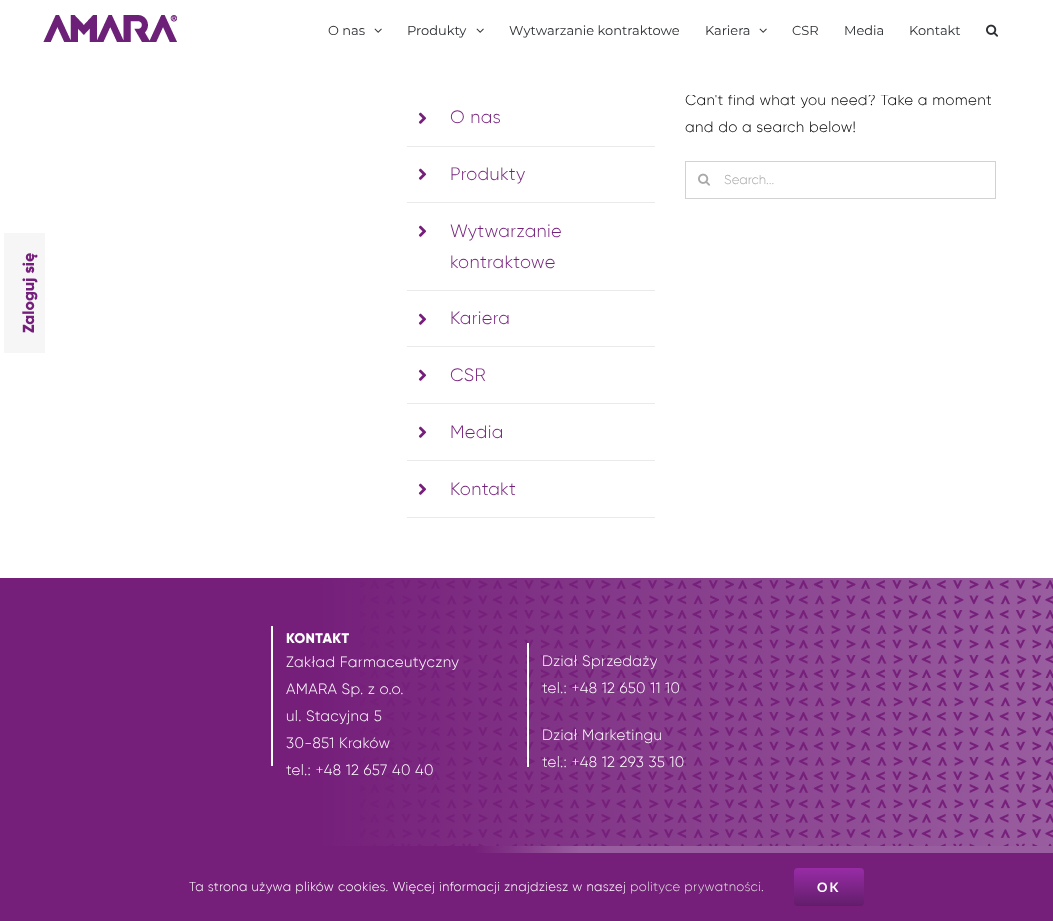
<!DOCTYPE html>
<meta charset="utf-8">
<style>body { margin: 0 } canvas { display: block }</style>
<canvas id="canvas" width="1053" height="921"></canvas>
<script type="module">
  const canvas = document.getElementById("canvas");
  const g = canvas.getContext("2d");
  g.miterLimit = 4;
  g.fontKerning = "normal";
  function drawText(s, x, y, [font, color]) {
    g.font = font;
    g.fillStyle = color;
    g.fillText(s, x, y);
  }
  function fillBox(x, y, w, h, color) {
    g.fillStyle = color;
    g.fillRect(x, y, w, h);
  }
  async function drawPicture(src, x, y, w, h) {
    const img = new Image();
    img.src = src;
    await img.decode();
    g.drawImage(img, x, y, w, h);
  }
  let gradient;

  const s1 = ["300 15px Gilroy", "#000000"];
  const s2 = ["100 13px Montserrat", "#2B2E32"];
  const s3 = ["300 18px Gilroy", "#751F7C"];
  const s4 = ["300 13px Gilroy", "#AAA9A9"];
  const s5 = ["800 14px Gilroy", "#FFFFFF"];
  const s6 = ["300 15px Gilroy", "#FFFFFF"];
  const s7 = ["300 13px Gilroy", "#FFFFFF"];
  const s8 = ["300 13px Gilroy", "#DDDDDD"];
  const s9 = ["bold 13px Lato", "#FFFFFF"];

  fillBox(0, 0, 1053, 921, "#FFFFFF");
  g.letterSpacing = "0.33px";
  drawText("Can't find what you need? Take a moment", 685, 105, s1);
  fillBox(688, 94, 212, 1, "rgba(255, 255, 255, 0.99)");
  await drawPicture("pic1.png", 43, 15, 134, 27);
  g.letterSpacing = "0px";
  drawText("O nas", 328, 35, s2);
  await drawPicture("pic2.png", 374, 28, 8, 5);
  drawText("Produkty", 407, 35, s2);
  await drawPicture("pic2.png", 476, 28, 8, 5);
  drawText("Wytwarzanie kontraktowe", 509, 35, s2);
  drawText("Kariera", 705, 35, s2);
  await drawPicture("pic2.png", 759, 28, 8, 5);
  drawText("CSR", 792, 35, s2);
  drawText("Media", 844, 35, s2);
  drawText("Kontakt", 909, 35, s2);
  await drawPicture("pic3.png", 986, 24, 12, 13);
  fillBox(4, 233, 41, 120, "#F6F6F6");
  g.font = "800 16px Gilroy";
  g.fillStyle = "#751F7C";
  g.save();
  g.translate(34, 333);
  g.rotate(-90 * Math.PI / 180);
  g.fillText("Zaloguj się", 0, 0);
  g.restore();
  fillBox(407, 146, 248, 1, "#EAEAEA");
  await drawPicture("pic4.png", 418, 112, 9, 12);
  g.letterSpacing = "0.33px";
  drawText("O nas", 450, 123, s3);
  fillBox(407, 202, 248, 1, "#EAEAEA");
  await drawPicture("pic4.png", 418, 168, 9, 12);
  drawText("Produkty", 450, 180, s3);
  fillBox(407, 290, 248, 1, "#EAEAEA");
  await drawPicture("pic4.png", 418, 225, 9, 12);
  drawText("Wytwarzanie", 450, 237, s3);
  drawText("kontraktowe", 450, 268, s3);
  fillBox(407, 346, 248, 1, "#EAEAEA");
  await drawPicture("pic4.png", 418, 313, 9, 12);
  drawText("Kariera", 450, 324, s3);
  fillBox(407, 403, 248, 1, "#EAEAEA");
  await drawPicture("pic4.png", 418, 369, 9, 12);
  drawText("CSR", 450, 381, s3);
  fillBox(407, 460, 248, 1, "#EAEAEA");
  await drawPicture("pic4.png", 418, 426, 9, 12);
  drawText("Media", 450, 438, s3);
  fillBox(407, 517, 248, 1, "#EAEAEA");
  await drawPicture("pic4.png", 418, 483, 9, 12);
  drawText("Kontakt", 450, 495, s3);
  drawText("and do a search below!", 685, 132, s1);
  g.strokeStyle = "#D2D2D2";
  g.strokeRect(685.5, 161.5, 310, 37);
  await drawPicture("pic5.png", 698, 173, 12, 13);
  g.letterSpacing = "0px";
  drawText("Search...", 724, 184, s4);
  gradient = g.createLinearGradient(0, 713, 1053, 713);
  gradient.addColorStop(0.3, "#751F7A");
  gradient.addColorStop(1, "#995E9F");
  g.fillStyle = gradient;
  g.fillRect(0, 578, 1053, 268);
  await drawPicture("pic6.png", 360, 580, 693, 266);
  fillBox(271, 626, 2, 140, "#FFFFFF");
  g.letterSpacing = "0.33px";
  drawText("KONTAKT", 286, 643, s5);
  drawText("Zakład Farmaceutyczny", 286, 667, s6);
  drawText("AMARA Sp. z o.o.", 286, 694, s6);
  drawText("ul. Stacyjna 5", 286, 721, s6);
  drawText("30-851 Kraków", 286, 748, s6);
  drawText("tel.: +48 12 657 40 40", 286, 775, s6);
  fillBox(527, 643, 2, 124, "#FFFFFF");
  drawText("Dział Sprzedaży", 542, 666, s6);
  drawText("tel.: +48 12 650 11 10", 542, 693, s6);
  drawText("Dział Marketingu", 542, 740, s6);
  drawText("tel.: +48 12 293 35 10", 542, 767, s6);
  gradient = g.createLinearGradient(0, 884, 1053, 884);
  gradient.addColorStop(0.45, "#751F7A");
  gradient.addColorStop(0.55, "#995E9F");
  g.fillStyle = gradient;
  g.fillRect(0, 846, 1053, 7);
  fillBox(0, 853, 1053, 68, "#751F7A");
  drawText("Ta strona używa plików cookies. Więcej informacji znajdziesz w naszej", 189, 891, s7);
  drawText("polityce prywatności", 630, 891, s8);
  drawText(".", 761, 891, s7);
  gradient = g.createLinearGradient(829, 868, 829, 906);
  gradient.addColorStop(0, "#982CA6");
  gradient.addColorStop(1, "#621D6B");
  g.fillStyle = gradient;
  g.beginPath();
  g.roundRect(794, 868, 70, 38, 4);
  g.fill();
  g.letterSpacing = "2px";
  drawText("OK", 817, 892, s9);
</script>
